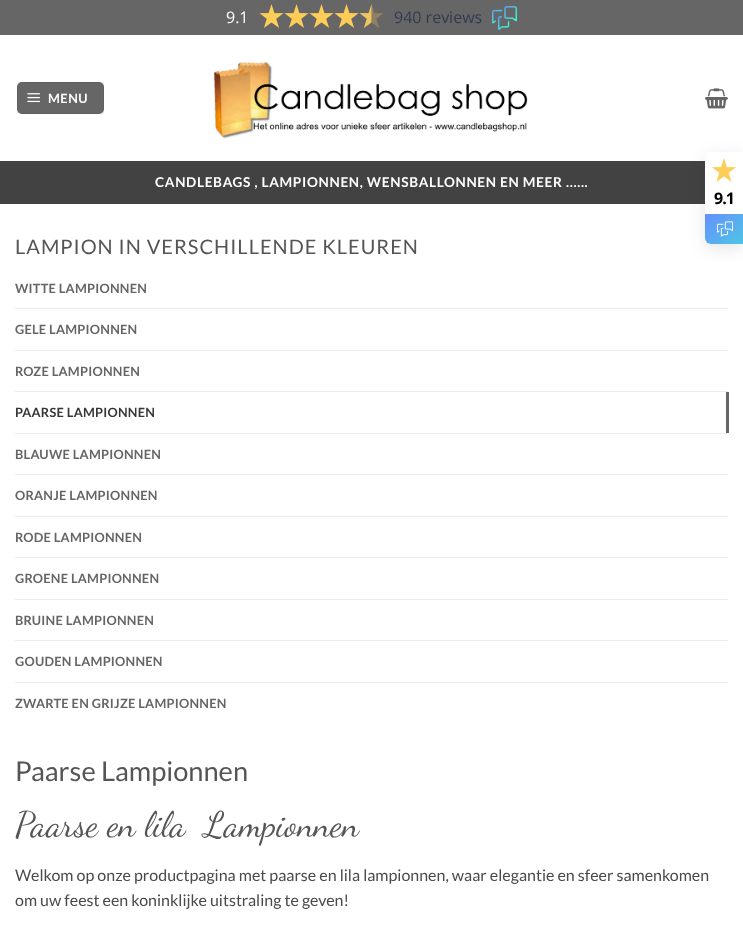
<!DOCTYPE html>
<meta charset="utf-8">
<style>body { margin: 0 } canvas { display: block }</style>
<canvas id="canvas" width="743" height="947"></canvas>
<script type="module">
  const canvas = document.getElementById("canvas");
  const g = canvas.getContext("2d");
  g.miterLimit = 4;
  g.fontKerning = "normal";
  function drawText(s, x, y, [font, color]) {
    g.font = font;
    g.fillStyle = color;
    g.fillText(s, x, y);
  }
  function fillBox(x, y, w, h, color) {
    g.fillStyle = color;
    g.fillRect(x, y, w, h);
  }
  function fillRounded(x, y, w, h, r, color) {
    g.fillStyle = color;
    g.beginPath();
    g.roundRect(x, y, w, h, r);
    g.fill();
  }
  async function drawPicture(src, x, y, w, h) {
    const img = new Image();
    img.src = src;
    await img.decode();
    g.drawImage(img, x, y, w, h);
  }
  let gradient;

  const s1 = ["16px Open Sans", "#FFFFFF"];
  const s2 = ["16px Open Sans", "#303C50"];
  const s3 = ["bold 12.75px Lato", "#FFFFFF"];
  const s4 = ["bold 13.6px Lato", "#FFFFFF"];
  const s5 = ["20px Lato", "#555555"];
  const s6 = ["bold 12.75px Lato", "#656565"];
  const s7 = ["bold 12.75px Lato", "#363636"];
  const s8 = ["27.25px Lato", "#555555"];
  const s9 = ["35.4px Dancing Script", "#555555"];
  const s10 = ["16px Lato", "#4A4A4A"];
  const s11 = ["bold 16px Open Sans", "#000000"];

  fillBox(0, 0, 743, 947, "#FFFFFF");
  fillBox(0, 0, 743, 35, "#666666");
  drawText("9.1", 226, 23, s1);
  await drawPicture("pic1.png", 259, 4, 25, 24);
  await drawPicture("pic1.png", 284, 4, 25, 24);
  await drawPicture("pic1.png", 309, 4, 25, 24);
  await drawPicture("pic1.png", 334, 4, 25, 24);
  await drawPicture("pic2.png", 359, 4, 25, 24);
  drawText("940 reviews", 394, 23, s2);
  await drawPicture("pic3.png", 492, 6, 25, 24);
  fillRounded(17, 82, 87, 32, 5, "#666666");
  g.strokeStyle = "rgba(0, 0, 0, 0.05)";
  g.strokeRect(17.5, 82.5, 86, 31);
  await drawPicture("pic4.png", 27, 93, 13, 10);
  g.letterSpacing = "0.5px";
  drawText("MENU", 48, 103, s3);
  await drawPicture("pic5.png", 214, 62, 314, 77);
  await drawPicture("pic6.png", 705, 88, 23, 21);
  fillBox(0, 161, 705, 43, "#424242");
  g.letterSpacing = "0.68px";
  drawText("CANDLEBAGS , LAMPIONNEN, WENSBALLONNEN EN MEER ......", 155, 187, s4);
  g.letterSpacing = "1px";
  drawText("LAMPION IN VERSCHILLENDE KLEUREN", 15, 254, s5);
  g.letterSpacing = "0.25px";
  drawText("WITTE LAMPIONNEN", 15, 293, s6);
  fillBox(15, 308, 713, 1, "#ECECEC");
  drawText("GELE LAMPIONNEN", 15, 334, s6);
  fillBox(15, 350, 713, 1, "#ECECEC");
  drawText("ROZE LAMPIONNEN", 15, 376, s6);
  fillBox(15, 391, 713, 1, "#ECECEC");
  drawText("PAARSE LAMPIONNEN", 15, 417, s7);
  fillBox(726, 392, 3, 41, "#666666");
  fillBox(15, 433, 713, 1, "#ECECEC");
  drawText("BLAUWE LAMPIONNEN", 15, 459, s6);
  fillBox(15, 474, 713, 1, "#ECECEC");
  drawText("ORANJE LAMPIONNEN", 15, 500, s6);
  fillBox(15, 516, 713, 1, "#ECECEC");
  drawText("RODE LAMPIONNEN", 15, 542, s6);
  fillBox(15, 557, 713, 1, "#ECECEC");
  drawText("GROENE LAMPIONNEN", 15, 583, s6);
  fillBox(15, 599, 713, 1, "#ECECEC");
  drawText("BRUINE LAMPIONNEN", 15, 625, s6);
  fillBox(15, 640, 713, 1, "#ECECEC");
  drawText("GOUDEN LAMPIONNEN", 15, 666, s6);
  fillBox(15, 682, 713, 1, "#ECECEC");
  drawText("ZWARTE EN GRIJZE LAMPIONNEN", 15, 708, s6);
  g.letterSpacing = "0px";
  drawText("Paarse Lampionnen", 15, 781, s8);
  drawText("Paarse en lila  Lampionnen", 15, 836, s9);
  drawText("Welkom op onze productpagina met paarse en lila lampionnen, waar elegantie en sfeer samenkomen", 15, 881, s10);
  drawText("om uw feest een koninklijke uitstraling te geven!", 15, 906, s10);
  g.fillStyle = "rgba(30, 30, 30, 0.12)";
  g.filter = "blur(8px)";
  g.beginPath();
  g.roundRect(705, 156, 38, 92, 6);
  g.fill();
  g.filter = "none";
  g.fillStyle = "#FFFFFF";
  g.beginPath();
  g.roundRect(705, 152, 38, 92, [6, 0, 0, 6]);
  g.fill();
  await drawPicture("pic7.png", 712, 158, 24, 24);
  g.letterSpacing = "-1px";
  drawText("9.1", 714, 204, s11);
  gradient = g.createLinearGradient(708, 211, 740, 247);
  gradient.addColorStop(0, "#6590FF");
  gradient.addColorStop(1, "#4EC5E4");
  g.fillStyle = gradient;
  g.beginPath();
  g.roundRect(705, 214, 38, 30, [0, 0, 0, 6]);
  g.fill();
  await drawPicture("pic8.png", 717, 221, 16, 16);
</script>
